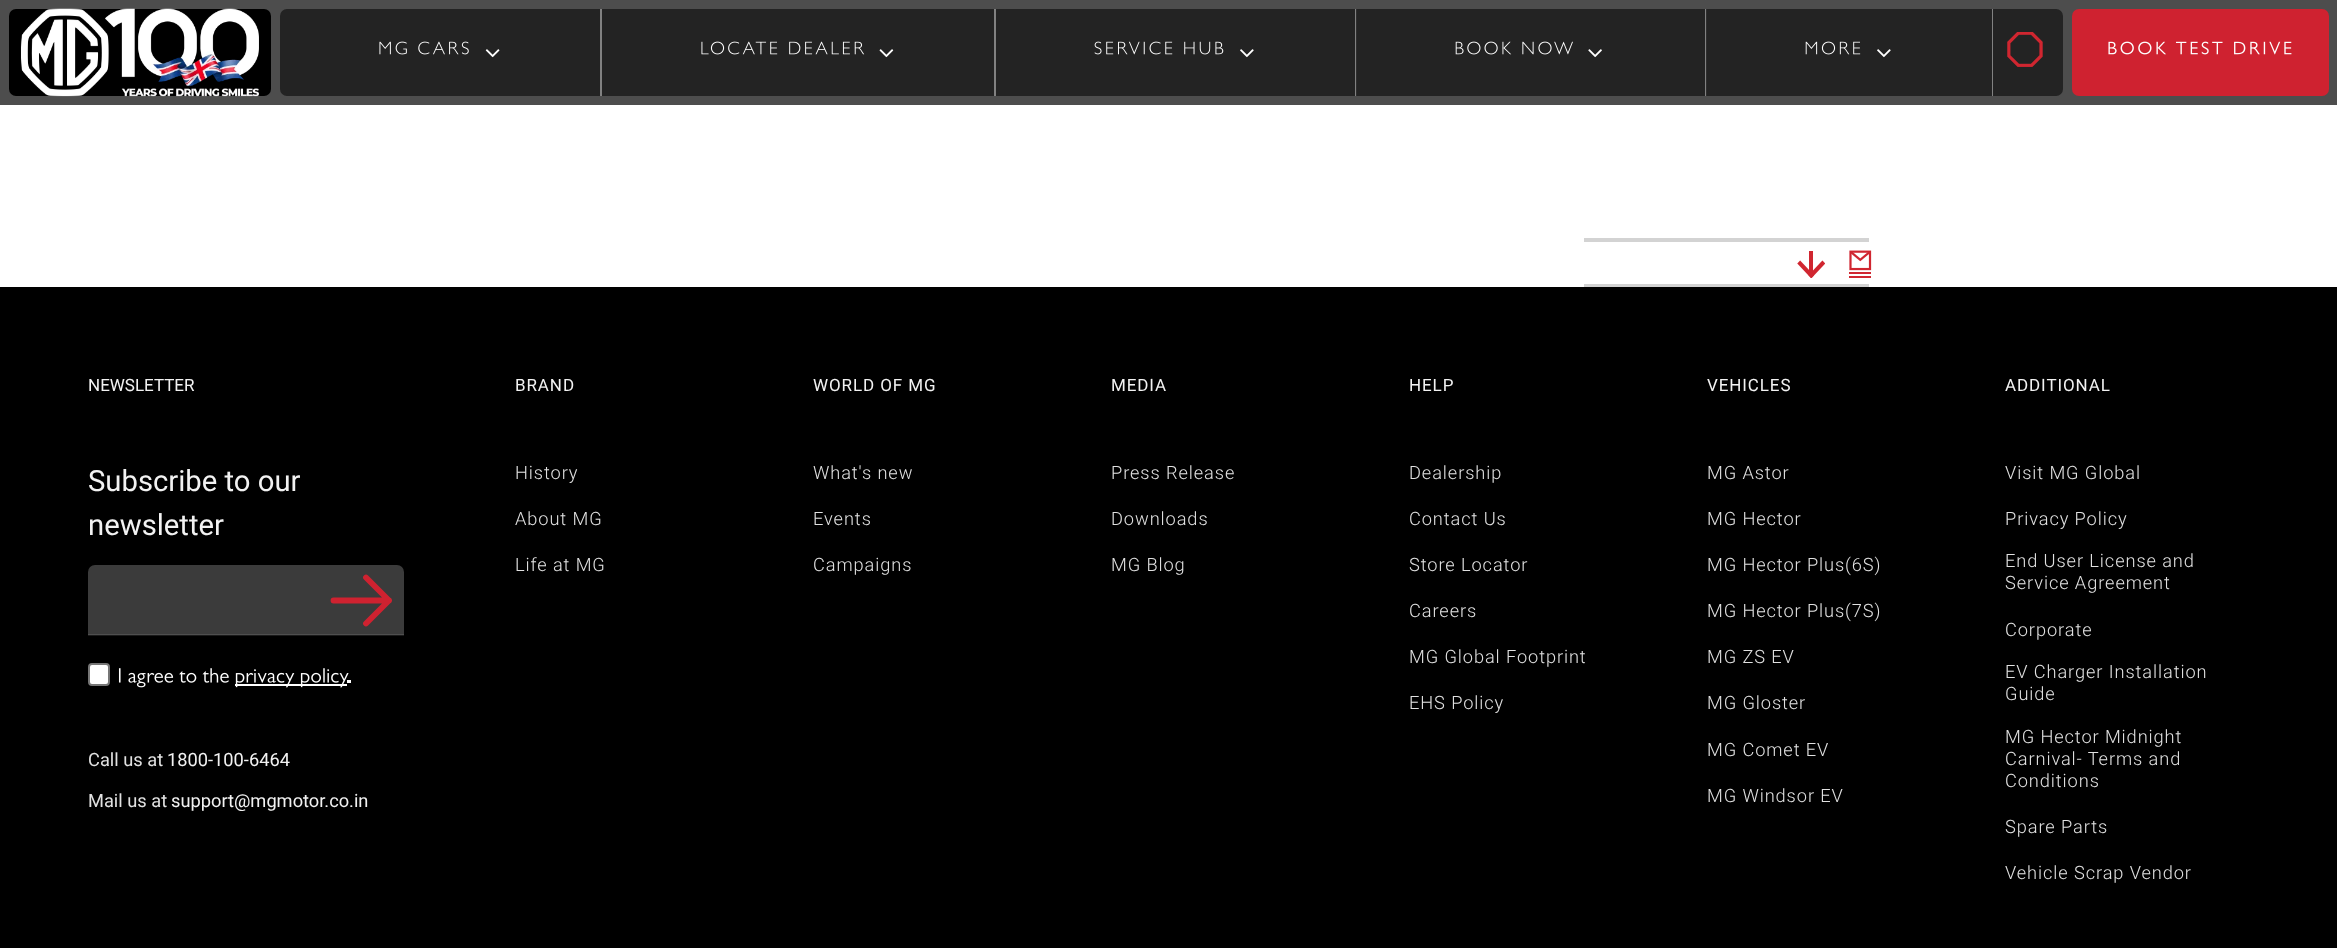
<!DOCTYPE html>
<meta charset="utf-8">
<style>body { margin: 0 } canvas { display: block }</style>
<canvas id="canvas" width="2337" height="948"></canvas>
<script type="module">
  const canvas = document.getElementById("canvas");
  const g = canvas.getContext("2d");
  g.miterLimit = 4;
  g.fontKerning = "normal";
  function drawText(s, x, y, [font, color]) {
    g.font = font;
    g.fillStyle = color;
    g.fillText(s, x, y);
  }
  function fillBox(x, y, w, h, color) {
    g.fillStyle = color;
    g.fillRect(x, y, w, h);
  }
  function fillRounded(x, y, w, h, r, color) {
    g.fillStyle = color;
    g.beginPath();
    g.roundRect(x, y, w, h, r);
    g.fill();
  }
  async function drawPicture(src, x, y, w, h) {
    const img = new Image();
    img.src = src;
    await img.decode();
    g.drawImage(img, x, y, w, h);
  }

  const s1 = ["17px Roboto", "#F2F2F2"];
  const s2 = ["29.25px Roboto", "#F2F2F2"];
  const s3 = ["18.25px Roboto", "#E1E1E1"];
  const s4 = ["18.25px Roboto", "#F2F2F2"];
  const s5 = ["300 18.25px Roboto", "#E1E1E1"];

  fillBox(0, 0, 2337, 948, "#FFFFFF");
  fillBox(0, 0, 2337, 105, "#4D4D4D");
  fillBox(1707, 9, 285, 87, "#232323");
  fillBox(1357, 9, 348, 87, "#232323");
  fillRounded(9, 9, 262, 87, 7, "#000000");
  await drawPicture("pic1.png", 20, 8, 239, 89);
  fillBox(600, 9, 2, 87, "#818181");
  g.fillStyle = "#232323";
  g.beginPath();
  g.roundRect(280, 9, 320, 87, [7, 0, 0, 7]);
  g.fill();
  await drawPicture("pic2.png", 379, 41, 90, 14);
  await drawPicture("pic3.png", 485, 49, 15, 9);
  fillBox(994, 9, 2, 87, "#818181");
  fillBox(602, 9, 392, 87, "#232323");
  await drawPicture("pic4.png", 701, 41, 164, 14);
  await drawPicture("pic5.png", 879, 49, 15, 9);
  fillBox(1355, 9, 1, 87, "#818181");
  fillBox(1356, 9, 1, 87, "#2E2E2E");
  fillBox(996, 9, 359, 87, "#232323");
  await drawPicture("pic6.png", 1094, 41, 130, 14);
  await drawPicture("pic7.png", 1240, 49, 14, 9);
  fillBox(1705, 9, 1, 87, "#818181");
  fillBox(1706, 9, 1, 87, "#2E2E2E");
  await drawPicture("pic8.png", 1455, 41, 118, 14);
  await drawPicture("pic9.png", 1588, 49, 14, 9);
  fillBox(1992, 9, 1, 87, "#818181");
  await drawPicture("pic10.png", 1805, 41, 56, 14);
  await drawPicture("pic11.png", 1877, 49, 14, 9);
  g.fillStyle = "#232323";
  g.beginPath();
  g.roundRect(1993, 9, 70, 87, [0, 7, 7, 0]);
  g.fill();
  await drawPicture("pic12.png", 2007, 32, 36, 35);
  fillRounded(2072, 9, 257, 87, 7, "#CF2230");
  await drawPicture("pic13.png", 2108, 41, 184, 14);
  fillBox(1584, 238, 285, 4, "#D3D3D3");
  await drawPicture("pic14.png", 1797, 251, 28, 27);
  await drawPicture("pic15.png", 1849, 250, 23, 28);
  fillBox(1584, 284, 285, 3, "#D3D3D3");
  fillBox(0, 287, 2337, 661, "#000000");
  fillBox(88, 635, 316, 1, "#1A1A1A");
  drawText("NEWSLETTER", 88, 391, s1);
  drawText("Subscribe to our", 88, 491, s2);
  drawText("newsletter", 88, 535, s2);
  g.fillStyle = "#3B3B3B";
  g.beginPath();
  g.roundRect(88, 565, 316, 70, [7, 7, 0, 0]);
  g.fill();
  fillBox(88, 634, 316, 1, "#4F4F4F");
  g.beginPath();
  g.moveTo(366, 623.5);
  g.lineTo(389, 600.5);
  g.moveTo(389, 600.5);
  g.lineTo(366, 577.5);
  g.moveTo(389, 600.5);
  g.lineTo(333.5, 600.5);
  g.strokeStyle = "#CF2230";
  g.lineWidth = 5.8;
  g.lineCap = "round";
  g.lineJoin = "round";
  g.stroke();
  g.fillStyle = "#FFFFFF";
  g.beginPath();
  g.roundRect(89, 664, 20, 21, 3);
  g.fill();
  g.strokeStyle = "#767676";
  g.lineWidth = 2;
  g.lineJoin = "miter";
  g.stroke();
  await drawPicture("pic16.png", 118, 668, 111, 20);
  fillBox(235, 684, 112, 2, "#FFFFFF");
  await drawPicture("pic17.png", 235, 668, 114, 20);
  fillBox(347, 680, 4, 3, "#FFFFFF");
  drawText("Call us at", 88, 766, s3);
  drawText("1800-100-6464", 167, 766, s4);
  drawText("Mail us at", 88, 807, s3);
  drawText("support@mgmotor.co.in", 171, 807, s4);
  g.letterSpacing = "0.9px";
  drawText("BRAND", 515, 391, s1);
  drawText("History", 515, 479, s5);
  drawText("About MG", 515, 525, s5);
  drawText("Life at MG", 515, 571, s5);
  drawText("WORLD OF MG", 813, 391, s1);
  drawText("What's new", 813, 479, s5);
  drawText("Events", 813, 525, s5);
  drawText("Campaigns", 813, 571, s5);
  drawText("MEDIA", 1111, 391, s1);
  drawText("Press Release", 1111, 479, s5);
  drawText("Downloads", 1111, 525, s5);
  drawText("MG Blog", 1111, 571, s5);
  drawText("HELP", 1409, 391, s1);
  drawText("Dealership", 1409, 479, s5);
  drawText("Contact Us", 1409, 525, s5);
  drawText("Store Locator", 1409, 571, s5);
  drawText("Careers", 1409, 617, s5);
  drawText("MG Global Footprint", 1409, 663, s5);
  drawText("EHS Policy", 1409, 709, s5);
  drawText("VEHICLES", 1707, 391, s1);
  drawText("MG Astor", 1707, 479, s5);
  drawText("MG Hector", 1707, 525, s5);
  drawText("MG Hector Plus(6S)", 1707, 571, s5);
  drawText("MG Hector Plus(7S)", 1707, 617, s5);
  drawText("MG ZS EV", 1707, 663, s5);
  drawText("MG Gloster", 1707, 709, s5);
  drawText("MG Comet EV", 1707, 756, s5);
  drawText("MG Windsor EV", 1707, 802, s5);
  drawText("ADDITIONAL", 2005, 391, s1);
  drawText("Visit MG Global", 2005, 479, s5);
  drawText("Privacy Policy", 2005, 525, s5);
  drawText("End User License and", 2005, 567, s5);
  drawText("Service Agreement", 2005, 589, s5);
  drawText("Corporate", 2005, 636, s5);
  drawText("EV Charger Installation", 2005, 678, s5);
  drawText("Guide", 2005, 700, s5);
  drawText("MG Hector Midnight", 2005, 743, s5);
  drawText("Carnival- Terms and", 2005, 765, s5);
  drawText("Conditions", 2005, 787, s5);
  drawText("Spare Parts", 2005, 833, s5);
  drawText("Vehicle Scrap Vendor", 2005, 879, s5);
</script>
